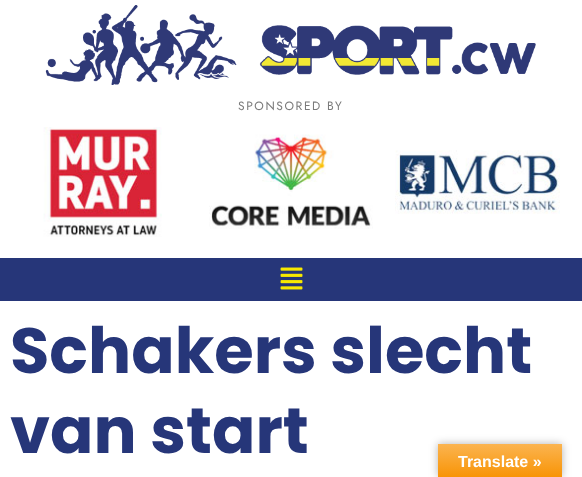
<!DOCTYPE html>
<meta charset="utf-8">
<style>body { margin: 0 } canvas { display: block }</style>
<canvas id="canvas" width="582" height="477"></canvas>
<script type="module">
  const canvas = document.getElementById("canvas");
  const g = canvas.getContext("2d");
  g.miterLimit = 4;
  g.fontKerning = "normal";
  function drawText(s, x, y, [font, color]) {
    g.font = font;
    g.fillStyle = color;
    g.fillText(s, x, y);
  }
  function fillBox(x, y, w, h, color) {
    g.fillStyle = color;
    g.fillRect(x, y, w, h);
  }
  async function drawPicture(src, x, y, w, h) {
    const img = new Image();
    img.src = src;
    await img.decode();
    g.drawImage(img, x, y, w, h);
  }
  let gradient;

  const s1 = ["12px Jost", "#7A7A7A"];
  const s2 = ["bold 64px Poppins", "#263679"];
  const s3 = ["bold 16px Liberation Sans", "#FFFFFF"];

  fillBox(0, 0, 582, 477, "#FFFFFF");
  await drawPicture("pic1.png", 45, 5, 491, 80);
  g.letterSpacing = "1.6px";
  drawText("SPONSORED BY", 238, 110, s1);
  await drawPicture("pic2.png", 43, 127, 119, 110);
  await drawPicture("pic3.png", 209, 134, 164, 95);
  await drawPicture("pic4.png", 395, 150, 165, 64);
  fillBox(0, 258, 582, 43, "#263679");
  await drawPicture("pic5.png", 280, 267, 23, 23);
  g.letterSpacing = "0px";
  drawText("Schakers slecht", 10, 373, s2);
  drawText("van start", 10, 453, s2);
  g.fillStyle = "rgba(0, 0, 0, 0.3)";
  g.filter = "blur(4.5px)";
  g.beginPath();
  g.rect(438, 444, 124, 33);
  g.fill();
  g.filter = "none";
  gradient = g.createLinearGradient(500, 444, 500, 477);
  gradient.addColorStop(0, "#FBB450");
  gradient.addColorStop(1, "#F89406");
  g.fillStyle = gradient;
  g.fillRect(438, 444, 124, 33);
  drawText("Translate »", 458, 467, s3);
</script>
